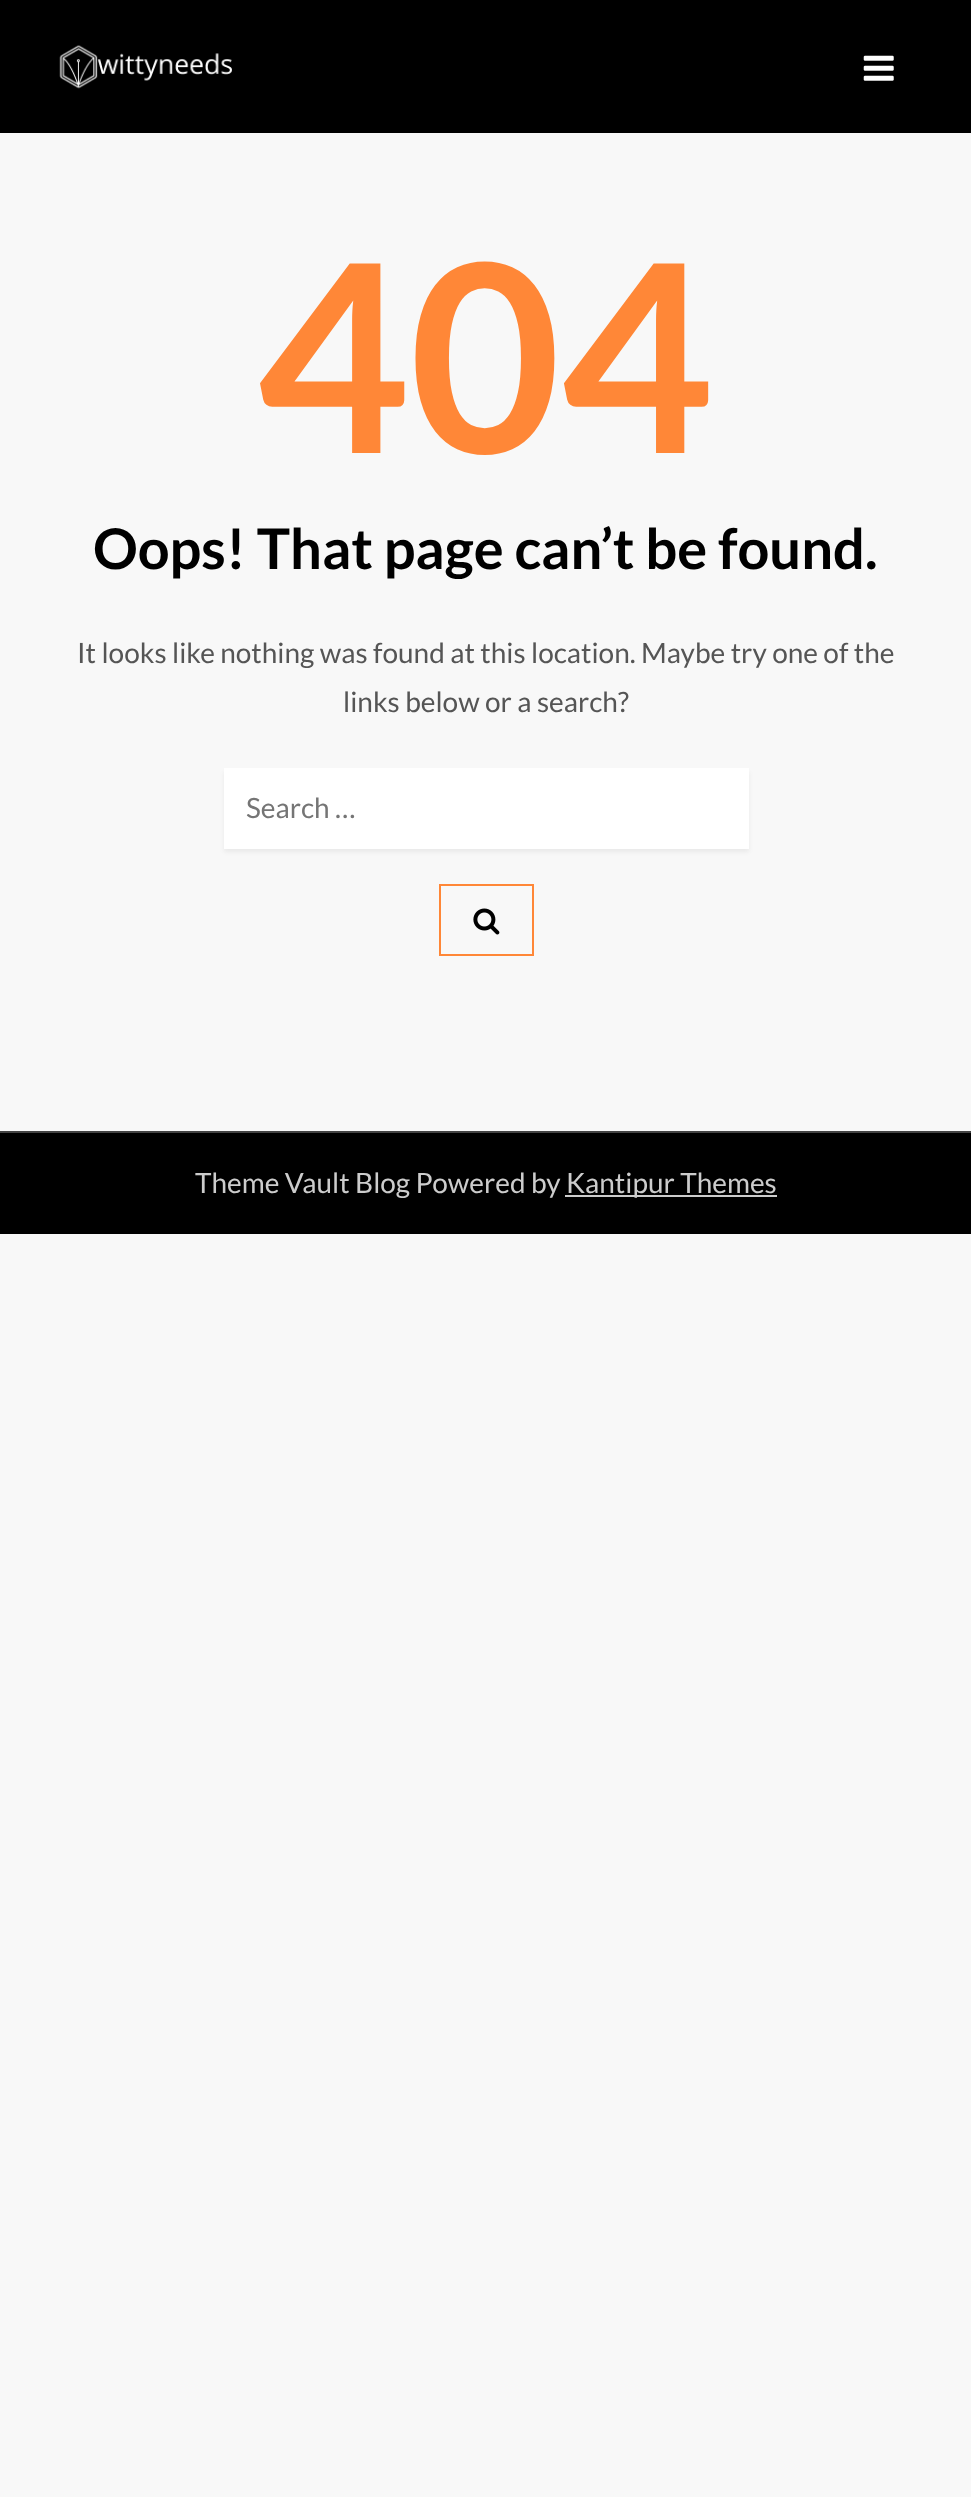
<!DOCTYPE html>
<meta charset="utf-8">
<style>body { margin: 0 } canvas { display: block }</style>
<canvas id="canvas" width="971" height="2497"></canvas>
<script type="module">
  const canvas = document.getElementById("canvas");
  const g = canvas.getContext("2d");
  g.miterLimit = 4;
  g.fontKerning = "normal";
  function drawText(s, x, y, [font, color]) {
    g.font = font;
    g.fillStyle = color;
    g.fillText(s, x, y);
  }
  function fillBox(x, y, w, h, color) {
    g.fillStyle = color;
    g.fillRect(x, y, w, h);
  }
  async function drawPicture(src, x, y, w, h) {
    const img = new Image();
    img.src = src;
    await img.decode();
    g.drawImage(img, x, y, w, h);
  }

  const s1 = ["bold 262px Lato", "#FF8737"];
  const s2 = ["bold 56px Lato", "#000000"];
  const s3 = ["28px Lato", "#555555"];
  const s4 = ["28px Lato", "#757575"];
  const s5 = ["28px Lato", "#CCCCCC"];

  fillBox(0, 0, 971, 2497, "#F8F8F8");
  fillBox(0, 0, 971, 133, "#000000");
  await drawPicture("pic1.png", 59, 45, 173, 44);
  await drawPicture("pic2.png", 863, 55, 31, 26);
  drawText("404", 257, 453, s1);
  drawText("Oops! That page can’t be found.", 93, 569, s2);
  drawText("It looks like nothing was found at this location. Maybe try one of the", 77, 663, s3);
  drawText("links below or a search?", 343, 712, s3);
  g.fillStyle = "rgba(0, 0, 0, 0.06)";
  g.filter = "blur(2px)";
  g.beginPath();
  g.rect(224, 772, 525, 80);
  g.fill();
  g.filter = "none";
  fillBox(224, 768, 525, 81, "#FFFFFF");
  drawText("Search …", 246, 818, s4);
  g.strokeStyle = "#FF8737";
  g.lineWidth = 2;
  g.strokeRect(440, 885, 93, 70);
  await drawPicture("pic3.png", 473, 908, 27, 27);
  fillBox(0, 1133, 971, 101, "#000000");
  fillBox(0, 1131, 971, 2, "#444444");
  drawText("Theme Vault Blog Powered by", 195, 1193, s5);
  fillBox(565, 1195, 212, 2, "#CCCCCC");
  drawText("Kantipur Themes", 566, 1193, s5);
</script>
